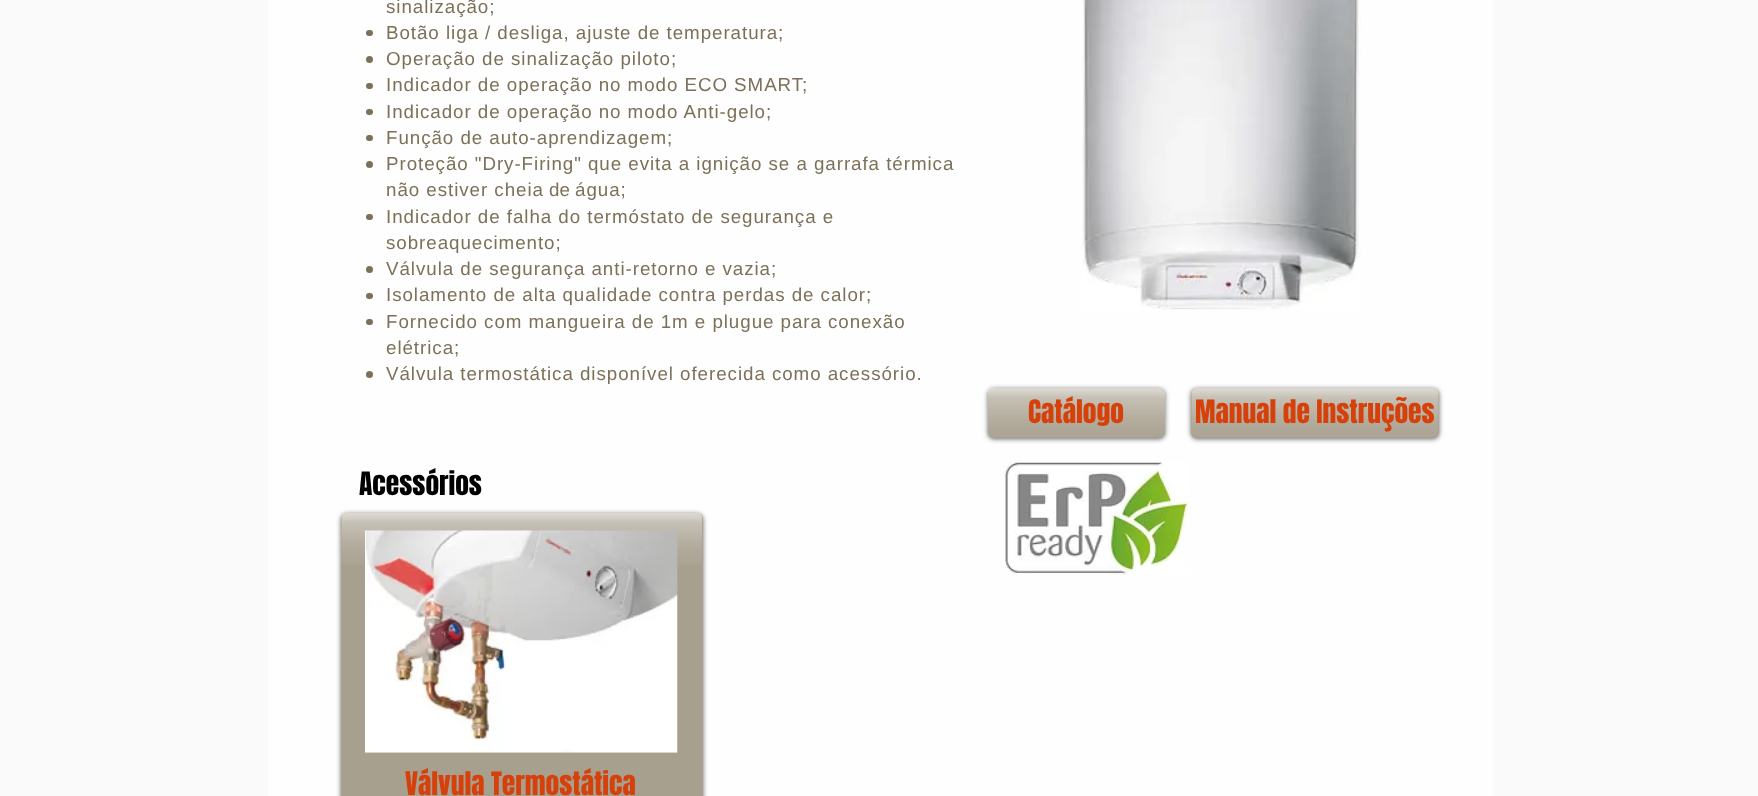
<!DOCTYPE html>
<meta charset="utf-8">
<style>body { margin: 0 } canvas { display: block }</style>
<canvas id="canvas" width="1758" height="796"></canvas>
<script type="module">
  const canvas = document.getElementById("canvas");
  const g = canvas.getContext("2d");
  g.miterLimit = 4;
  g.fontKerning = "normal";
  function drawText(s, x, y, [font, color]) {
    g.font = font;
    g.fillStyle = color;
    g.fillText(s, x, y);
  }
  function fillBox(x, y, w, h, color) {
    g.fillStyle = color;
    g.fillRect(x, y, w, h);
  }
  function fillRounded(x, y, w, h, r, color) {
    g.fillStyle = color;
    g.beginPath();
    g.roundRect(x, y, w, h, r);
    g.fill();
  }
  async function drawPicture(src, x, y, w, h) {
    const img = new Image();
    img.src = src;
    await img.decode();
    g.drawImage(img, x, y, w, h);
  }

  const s1 = ["18.75px Liberation Sans", "#7C7058"];
  const s2 = ["27.5px Anton", "#D6400A"];
  const s3 = ["27.5px Anton", "#000000"];

  fillBox(0, 0, 1758, 796, "#FAFAFA");
  fillBox(268, 0, 1225, 796, "#FEFEFE");
  g.letterSpacing = "0.95px";
  drawText("sinalização;", 386, 13, s1);
  fillRounded(366, 30, 7, 6, 3, "#7C7058");
  drawText("Botão liga / desliga, ajuste de temperatura;", 386, 39, s1);
  g.beginPath();
  g.arc(369.5, 59.5, 3.5, 0, Math.PI * 2);
  g.fill();
  drawText("Operação de sinalização piloto;", 386, 65, s1);
  fillRounded(366, 83, 7, 6, 3, "#7C7058");
  drawText("Indicador de operação no modo ECO SMART;", 386, 91, s1);
  fillRounded(366, 109, 7, 6, 3, "#7C7058");
  drawText("Indicador de operação no modo Anti-gelo;", 386, 118, s1);
  fillRounded(366, 135, 7, 6, 3, "#7C7058");
  drawText("Função de auto-aprendizagem;", 386, 144, s1);
  g.beginPath();
  g.arc(369.5, 164.5, 3.5, 0, Math.PI * 2);
  g.fill();
  drawText("Proteção \"Dry-Firing\" que evita a ignição se a garrafa térmica", 386, 170, s1);
  drawText("não estiver cheia", 386, 196, s1);
  g.letterSpacing = "0px";
  drawText("de", 549, 196, s1);
  g.letterSpacing = "0.95px";
  drawText("água;", 575, 196, s1);
  fillRounded(366, 214, 7, 6, 3, "#7C7058");
  drawText("Indicador de falha do termóstato de segurança e", 386, 223, s1);
  drawText("sobreaquecimento;", 386, 249, s1);
  g.beginPath();
  g.arc(369.5, 269.5, 3.5, 0, Math.PI * 2);
  g.fill();
  drawText("Válvula de segurança anti-retorno e vazia;", 386, 275, s1);
  fillRounded(366, 293, 7, 6, 3, "#7C7058");
  drawText("Isolamento de alta qualidade contra perdas de calor;", 386, 301, s1);
  fillRounded(366, 319, 7, 6, 3, "#7C7058");
  drawText("Fornecido com mangueira de 1m e plugue para conexão", 386, 328, s1);
  drawText("elétrica;", 386, 354, s1);
  g.beginPath();
  g.arc(369.5, 374.5, 3.5, 0, Math.PI * 2);
  g.fill();
  drawText("Válvula termostática disponível oferecida como acessório.", 386, 380, s1);
  await drawPicture("pic1.png", 1081, 0, 280, 310);
  g.fillStyle = "rgba(0, 0, 0, 0.6)";
  g.filter = "blur(2.5px)";
  g.beginPath();
  g.roundRect(988, 389, 177, 50, 6);
  g.fill();
  g.filter = "none";
  fillRounded(988, 388, 177, 50, 6, "#A8A08F");
  await drawPicture("pic2.png", 988, 388, 177, 49);
  g.letterSpacing = "0px";
  drawText("Catálogo", 1028, 423, s2);
  g.fillStyle = "rgba(0, 0, 0, 0.6)";
  g.filter = "blur(2.5px)";
  g.beginPath();
  g.roundRect(1191, 389, 248, 50, 6);
  g.fill();
  g.filter = "none";
  fillRounded(1191, 388, 248, 50, 6, "#A8A08F");
  await drawPicture("pic3.png", 1191, 388, 248, 49);
  drawText("Manual de Instruções", 1195, 423, s2);
  drawText("Acessórios", 359, 495, s3);
  g.fillStyle = "rgba(0, 0, 0, 0.6)";
  g.filter = "blur(2.5px)";
  g.beginPath();
  g.roundRect(341, 514, 362, 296, 6);
  g.fill();
  g.filter = "none";
  fillRounded(341, 513, 362, 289, 6, "#A8A08F");
  await drawPicture("pic4.png", 341, 513, 362, 52);
  await drawPicture("pic5.png", 365, 530, 313, 223);
  drawText("Válvula Termostática", 405, 795, s2);
  await drawPicture("pic6.png", 1005, 461, 185, 114);
</script>
